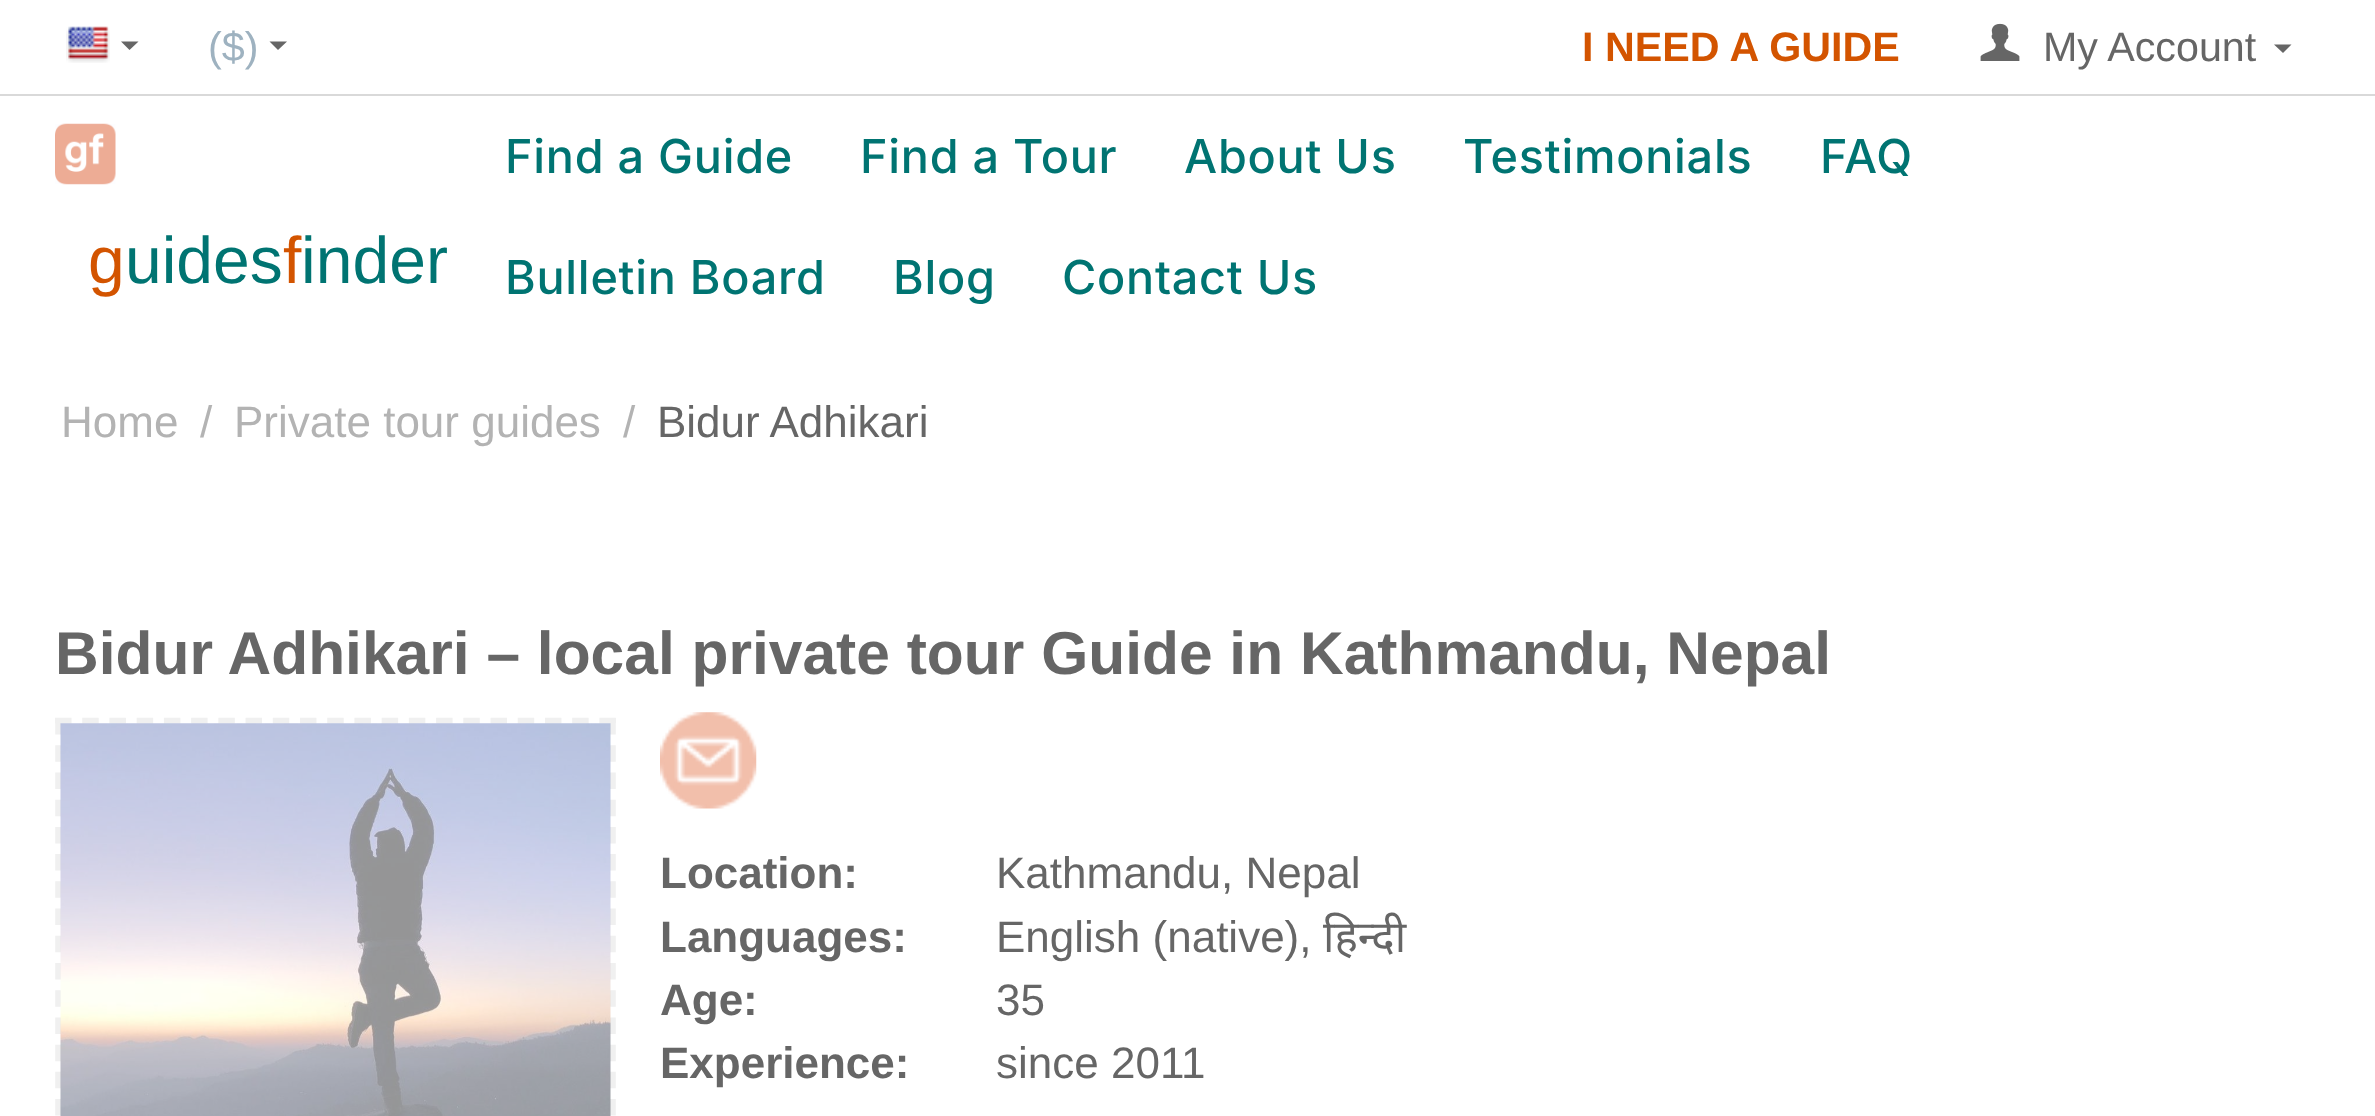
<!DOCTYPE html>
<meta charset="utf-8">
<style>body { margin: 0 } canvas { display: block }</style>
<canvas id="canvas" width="2375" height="1116"></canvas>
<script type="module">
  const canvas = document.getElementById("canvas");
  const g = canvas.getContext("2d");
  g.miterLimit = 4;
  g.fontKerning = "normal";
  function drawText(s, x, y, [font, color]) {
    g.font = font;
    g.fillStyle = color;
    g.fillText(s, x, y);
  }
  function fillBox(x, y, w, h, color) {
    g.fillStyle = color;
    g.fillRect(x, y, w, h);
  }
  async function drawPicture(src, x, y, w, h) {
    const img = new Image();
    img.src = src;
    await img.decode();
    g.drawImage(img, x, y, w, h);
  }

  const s1 = ["41.25px Liberation Sans", "#9EB2C0"];
  const s2 = ["bold 41.25px Liberation Sans", "#D35400"];
  const s3 = ["41.25px Liberation Sans", "#666666"];
  const s4 = ["66px Liberation Sans", "#007472"];
  const s5 = ["66px Liberation Sans", "#D35400"];
  const s6 = ["500 46.75px Inter", "#007472"];
  const s7 = ["44px Liberation Sans", "#B3B3B3"];
  const s8 = ["44px Liberation Sans", "#666666"];
  const s9 = ["bold 60.5px Liberation Sans", "#666666"];
  const s10 = ["bold 44px Liberation Sans", "#666666"];
  const s11 = ["44px Noto Sans", "#666666"];

  fillBox(0, 0, 2375, 1116, "#FFFFFF");
  fillBox(0, 94, 2375, 2, "#D9D9D9");
  await drawPicture("pic1.png", 66, 26, 44, 37);
  g.fillStyle = "#666666";
  g.beginPath();
  g.moveTo(129.5, 50);
  g.lineTo(121, 41.5);
  g.lineTo(138.5, 41.5);
  g.closePath();
  g.fill();
  drawText("($)", 208, 61, s1);
  g.fillStyle = "#666666";
  g.beginPath();
  g.moveTo(278, 50);
  g.lineTo(269.5, 41.5);
  g.lineTo(287, 41.5);
  g.closePath();
  g.fill();
  drawText("I NEED A GUIDE", 1582, 61, s2);
  await drawPicture("pic2.png", 1980, 23, 40, 38);
  drawText("My Account", 2043, 61, s3);
  g.beginPath();
  g.moveTo(2283, 53);
  g.lineTo(2274, 44.5);
  g.lineTo(2291.5, 44.5);
  g.closePath();
  g.fill();
  await drawPicture("pic3.png", 55, 123, 61, 62);
  drawText("uides inder", 125, 283, s4);
  drawText("g", 88, 283, s5);
  drawText("f", 283, 283, s5);
  g.letterSpacing = "0.75px";
  drawText("Find a Guide", 505, 173, s6);
  drawText("Find a Tour", 860, 173, s6);
  drawText("About Us", 1184, 173, s6);
  drawText("Testimonials", 1463, 173, s6);
  drawText("FAQ", 1820, 173, s6);
  drawText("Bulletin Board", 505, 294, s6);
  drawText("Blog", 893, 294, s6);
  drawText("Contact Us", 1062, 294, s6);
  g.letterSpacing = "0px";
  drawText("Home", 61, 437, s7);
  drawText("/", 200, 437, s7);
  drawText("Private tour guides", 234, 437, s7);
  drawText("/", 623, 437, s7);
  drawText("Bidur Adhikari", 657, 437, s8);
  drawText("Bidur Adhikari – local private tour Guide in Kathmandu, Nepal", 55, 674, s9);
  g.beginPath();
  g.moveTo(55, 720.5);
  g.lineTo(616, 720.5);
  g.strokeStyle = "#F0F0F0";
  g.lineWidth = 5.5;
  g.setLineDash([16.5, 10.72]);
  g.stroke();
  g.beginPath();
  g.moveTo(58, 718);
  g.lineTo(58, 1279);
  g.stroke();
  g.beginPath();
  g.moveTo(613, 718);
  g.lineTo(613, 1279);
  g.stroke();
  await drawPicture("pic4.png", 60, 723, 551, 393);
  await drawPicture("pic5.png", 660, 712, 97, 97);
  drawText("Location:", 660, 888, s10);
  drawText("Kathmandu, Nepal", 996, 888, s8);
  drawText("Languages:", 660, 952, s10);
  drawText("English (native),", 996, 952, s8);
  drawText("हिन्दी", 1323, 952, s11);
  drawText("Age:", 660, 1015, s10);
  drawText("35", 996, 1015, s8);
  drawText("Experience:", 660, 1078, s10);
  drawText("since 2011", 996, 1078, s8);
</script>
